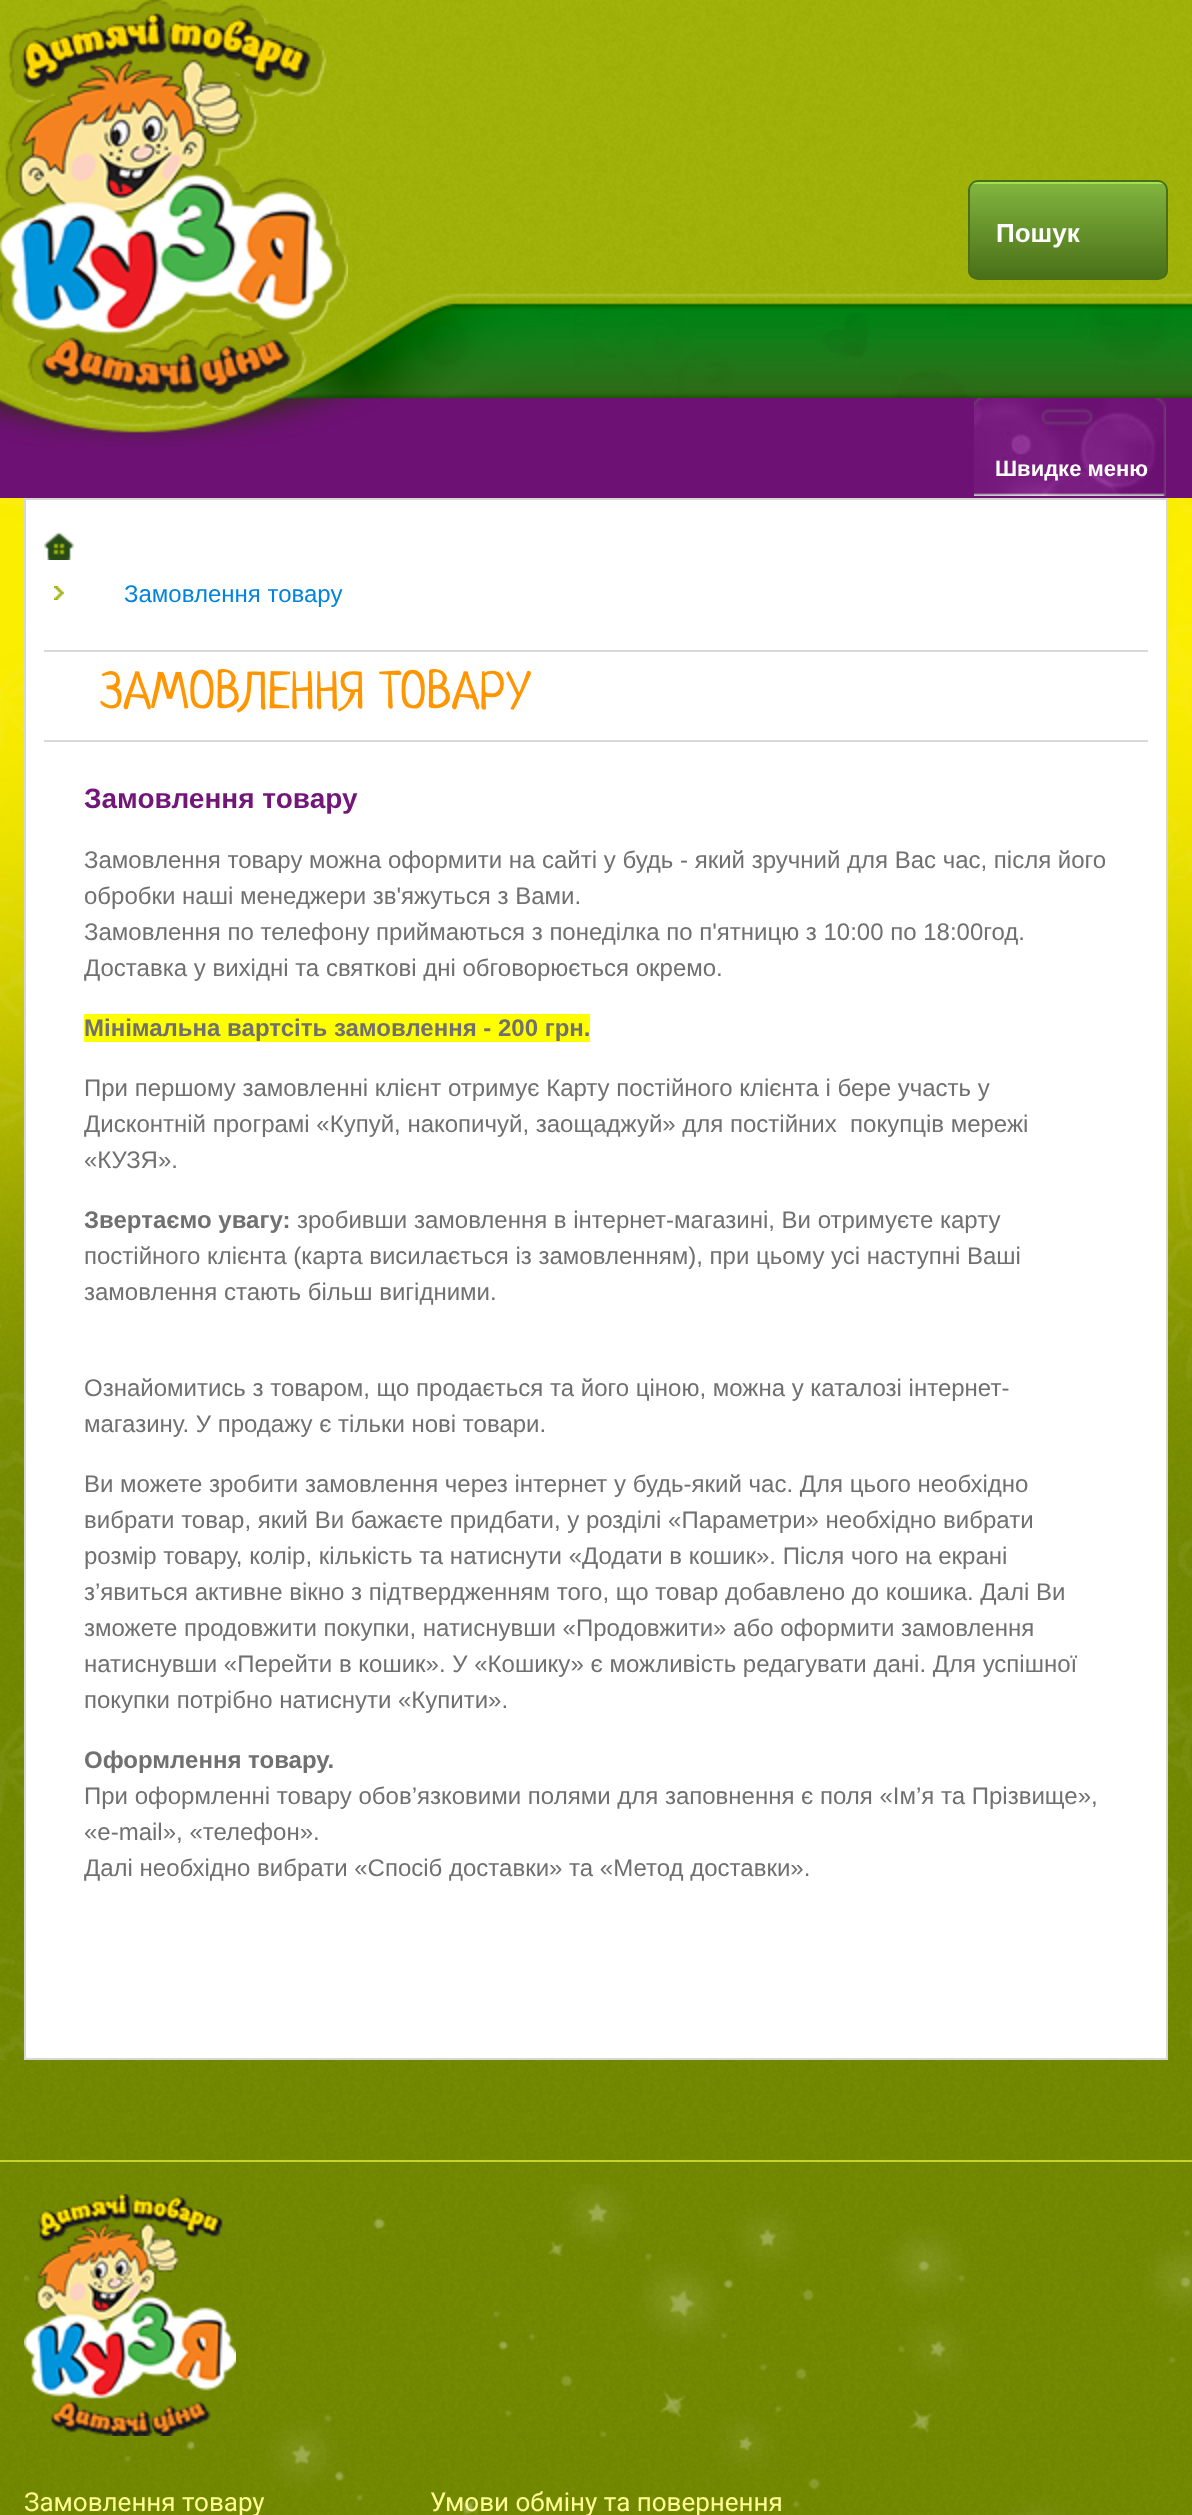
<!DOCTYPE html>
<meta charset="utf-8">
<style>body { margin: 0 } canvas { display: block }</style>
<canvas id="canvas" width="1192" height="2515"></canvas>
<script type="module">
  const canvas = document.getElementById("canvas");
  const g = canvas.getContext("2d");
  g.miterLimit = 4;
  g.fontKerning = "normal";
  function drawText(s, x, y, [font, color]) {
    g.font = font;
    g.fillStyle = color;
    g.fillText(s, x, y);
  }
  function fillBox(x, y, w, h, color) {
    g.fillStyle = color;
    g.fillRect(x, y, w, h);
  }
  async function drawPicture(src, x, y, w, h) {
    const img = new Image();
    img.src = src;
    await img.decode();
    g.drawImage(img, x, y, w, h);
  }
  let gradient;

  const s1 = ["bold 26px Liberation Sans", "#FFFFFF"];
  const s2 = ["bold 22px Liberation Sans", "#FFFFFF"];
  const s3 = ["24px Liberation Sans", "#0283DD"];
  const s4 = ["52px Neucha", "#FF9600"];
  const s5 = ["bold 28px Liberation Sans", "#72167A"];
  const s6 = ["24px Liberation Sans", "#707070"];
  const s7 = ["bold 24px Liberation Sans", "#707070"];
  const s8 = ["26px Roboto", "#FFFE95"];

  fillBox(0, 0, 1192, 2515, "#FFFFFF");
  await drawPicture("pic1.png", 0, 1566, 1192, 949);
  await drawPicture("pic9.png", 0, 498, 1192, 1068);
  await drawPicture("pic2.png", 0, 498, 1192, 1562);
  await drawPicture("pic3.png", 281, 0, 911, 398);
  fillBox(0, 398, 1192, 100, "#6E1175");
  await drawPicture("pic4.png", 0, 0, 574, 447);
  await drawPicture("pic5.png", 0, 0, 348, 410);
  g.save();
  g.beginPath();
  g.roundRect(968, 180, 200, 100, 10);
  g.clip();
  gradient = g.createLinearGradient(1068, 182, 1068, 278);
  gradient.addColorStop(0, "#A3E24E");
  gradient.addColorStop(0.02, "#A3E24E");
  gradient.addColorStop(0.02, "#81B43E");
  gradient.addColorStop(1, "#4A7018");
  g.fillStyle = gradient;
  g.fillRect(968, 182, 200, 96);
  g.restore();
  g.beginPath();
  g.roundRect(969, 181, 198, 98, 9);
  g.strokeStyle = "#496F1C";
  g.lineWidth = 2;
  g.stroke();
  drawText("Пошук", 996, 242, s1);
  await drawPicture("pic6.png", 974, 398, 192, 98);
  drawText("Швидке меню", 995, 476, s2);
  g.beginPath();
  g.rect(25, 499, 1142, 1560);
  g.fill();
  g.strokeStyle = "#D6D6D6";
  g.stroke();
  await drawPicture("pic7.png", 44, 532, 30, 28);
  await drawPicture("pic8.png", 54, 586, 10, 14);
  drawText("Замовлення товару", 124, 602, s3);
  fillBox(44, 650, 1104, 2, "#D9D9D9");
  fillBox(44, 740, 1104, 2, "#D9D9D9");
  drawText("ЗАМОВЛЕННЯ ТОВАРУ", 100, 708, s4);
  drawText("Замовлення товару", 84, 808, s5);
  drawText("Замовлення товару можна оформити на сайті у будь - який зручний для Вас час, після його", 84, 868, s6);
  drawText("обробки наші менеджери зв'яжуться з Вами.", 84, 904, s6);
  drawText("Замовлення по телефону приймаються з понеділка по п'ятницю з 10:00 по 18:00год.", 84, 940, s6);
  drawText("Доставка у вихідні та святкові дні обговорюється окремо.", 84, 976, s6);
  fillBox(84, 1014, 506, 28, "#FFFF00");
  drawText("Мінімальна вартсіть замовлення - 200 грн.", 84, 1036, s7);
  drawText("При першому замовленні клієнт отримує Карту постійного клієнта і бере участь у", 84, 1096, s6);
  drawText("Дисконтній програмі «Купуй, накопичуй, заощаджуй» для постійних  покупців мережі", 84, 1132, s6);
  drawText("«КУЗЯ».", 84, 1168, s6);
  drawText("Звертаємо увагу:", 84, 1228, s7);
  drawText("зробивши замовлення в інтернет-магазині, Ви отримуєте карту", 297, 1228, s6);
  drawText("постійного клієнта (карта висилається із замовленням), при цьому усі наступні Ваші", 84, 1264, s6);
  drawText("замовлення стають більш вигідними.", 84, 1300, s6);
  drawText("Ознайомитись з товаром, що продається та його ціною, можна у каталозі інтернет-", 84, 1396, s6);
  drawText("магазину. У продажу є тільки нові товари.", 84, 1432, s6);
  drawText("Ви можете зробити замовлення через інтернет у будь-який час. Для цього необхідно", 84, 1492, s6);
  drawText("вибрати товар, який Ви бажаєте придбати, у розділі «Параметри» необхідно вибрати", 84, 1528, s6);
  drawText("розмір товару, колір, кількість та натиснути «Додати в кошик». Після чого на екрані", 84, 1564, s6);
  drawText("з’явиться активне вікно з підтвердженням того, що товар добавлено до кошика. Далі Ви", 84, 1600, s6);
  drawText("зможете продовжити покупки, натиснувши «Продовжити» або оформити замовлення", 84, 1636, s6);
  drawText("натиснувши «Перейти в кошик». У «Кошику» є можливість редагувати дані. Для успішної", 84, 1672, s6);
  drawText("покупки потрібно натиснути «Купити».", 84, 1708, s6);
  drawText("Оформлення товару.", 84, 1768, s7);
  drawText("При оформленні товару обов’язковими полями для заповнення є поля «Ім’я та Прізвище»,", 84, 1804, s6);
  drawText("«e-mail», «телефон».", 84, 1840, s6);
  drawText("Далі необхідно вибрати «Спосіб доставки» та «Метод доставки».", 84, 1876, s6);
  fillBox(0, 2160, 1192, 2, "#C6D42A");
  await drawPicture("pic10.png", 24, 2184, 1168, 331);
  await drawPicture("pic11.png", 24, 2194, 212, 242);
  drawText("Замовлення товару", 24, 2511, s8);
  drawText("Умови обміну та повернення", 430, 2511, s8);
</script>
